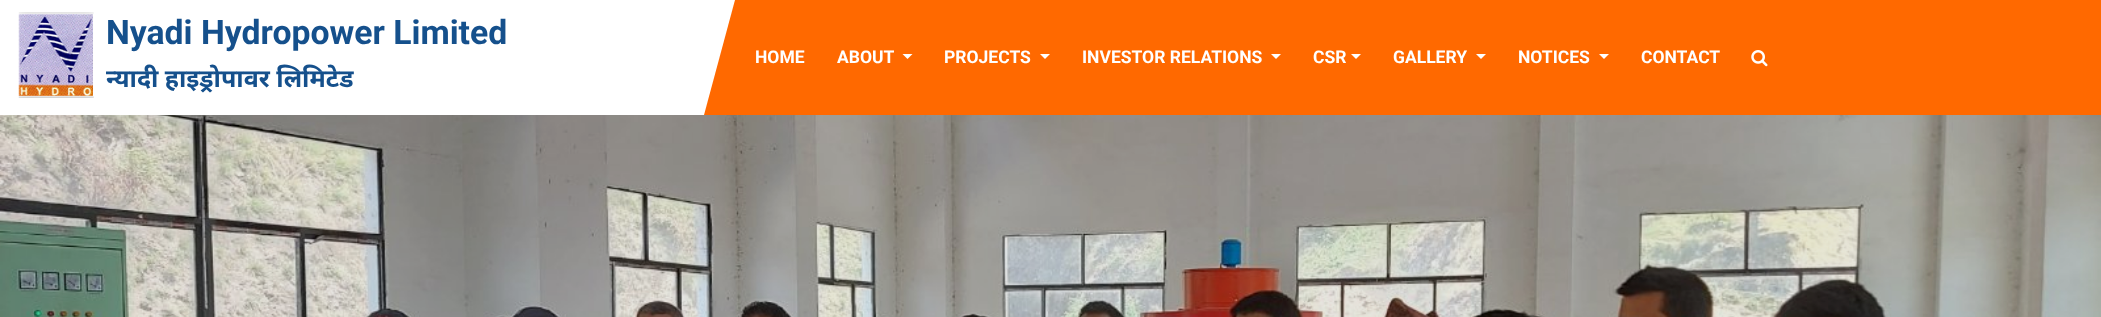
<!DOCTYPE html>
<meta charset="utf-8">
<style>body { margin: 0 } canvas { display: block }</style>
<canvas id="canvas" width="2101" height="317"></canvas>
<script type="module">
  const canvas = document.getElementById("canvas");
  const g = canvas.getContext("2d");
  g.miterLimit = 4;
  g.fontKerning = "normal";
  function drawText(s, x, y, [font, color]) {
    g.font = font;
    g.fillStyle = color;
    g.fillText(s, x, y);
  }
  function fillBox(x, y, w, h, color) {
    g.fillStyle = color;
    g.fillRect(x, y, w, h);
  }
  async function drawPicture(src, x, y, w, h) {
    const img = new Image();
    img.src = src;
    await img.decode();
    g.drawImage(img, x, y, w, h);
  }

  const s1 = ["bold 33.75px Roboto", "#15508C"];
  const s2 = ["bold 25px Noto Sans", "#15508C"];
  const s3 = ["bold 17.5px Roboto", "#FFFFFF"];

  fillBox(0, 0, 2101, 317, "#FFFFFF");
  await drawPicture("pic1.png", 18, 12, 76, 86);
  drawText("Nyadi Hydropower Limited", 106, 44, s1);
  drawText("न्यादी हाइड्रोपावर लिमिटेड", 106, 87, s2);
  g.fillStyle = "#FF6900";
  g.beginPath();
  g.moveTo(735, 0);
  g.lineTo(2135, 0);
  g.lineTo(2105, 115);
  g.lineTo(704, 115);
  g.closePath();
  g.fill();
  drawText("HOME", 755, 63, s3);
  drawText("ABOUT", 837, 63, s3);
  g.beginPath();
  g.moveTo(902.5, 54);
  g.lineTo(912.5, 54);
  g.lineTo(907.5, 59);
  g.closePath();
  g.fill();
  drawText("PROJECTS", 944, 63, s3);
  g.beginPath();
  g.moveTo(1040, 54);
  g.lineTo(1050, 54);
  g.lineTo(1045, 59);
  g.closePath();
  g.fill();
  drawText("INVESTOR RELATIONS", 1082, 63, s3);
  g.beginPath();
  g.moveTo(1271, 54);
  g.lineTo(1281, 54);
  g.lineTo(1276, 59);
  g.closePath();
  g.fill();
  drawText("CSR", 1313, 63, s3);
  g.beginPath();
  g.moveTo(1351, 54);
  g.lineTo(1361, 54);
  g.lineTo(1356, 59);
  g.closePath();
  g.fill();
  drawText("GALLERY", 1393, 63, s3);
  g.beginPath();
  g.moveTo(1476, 54);
  g.lineTo(1486, 54);
  g.lineTo(1481, 59);
  g.closePath();
  g.fill();
  drawText("NOTICES", 1518, 63, s3);
  g.beginPath();
  g.moveTo(1599, 54);
  g.lineTo(1609, 54);
  g.lineTo(1604, 59);
  g.closePath();
  g.fill();
  drawText("CONTACT", 1641, 63, s3);
  await drawPicture("pic2.png", 1751, 50, 17, 17);
  await drawPicture("pic3.png", 0, 115, 2101, 202);
</script>
